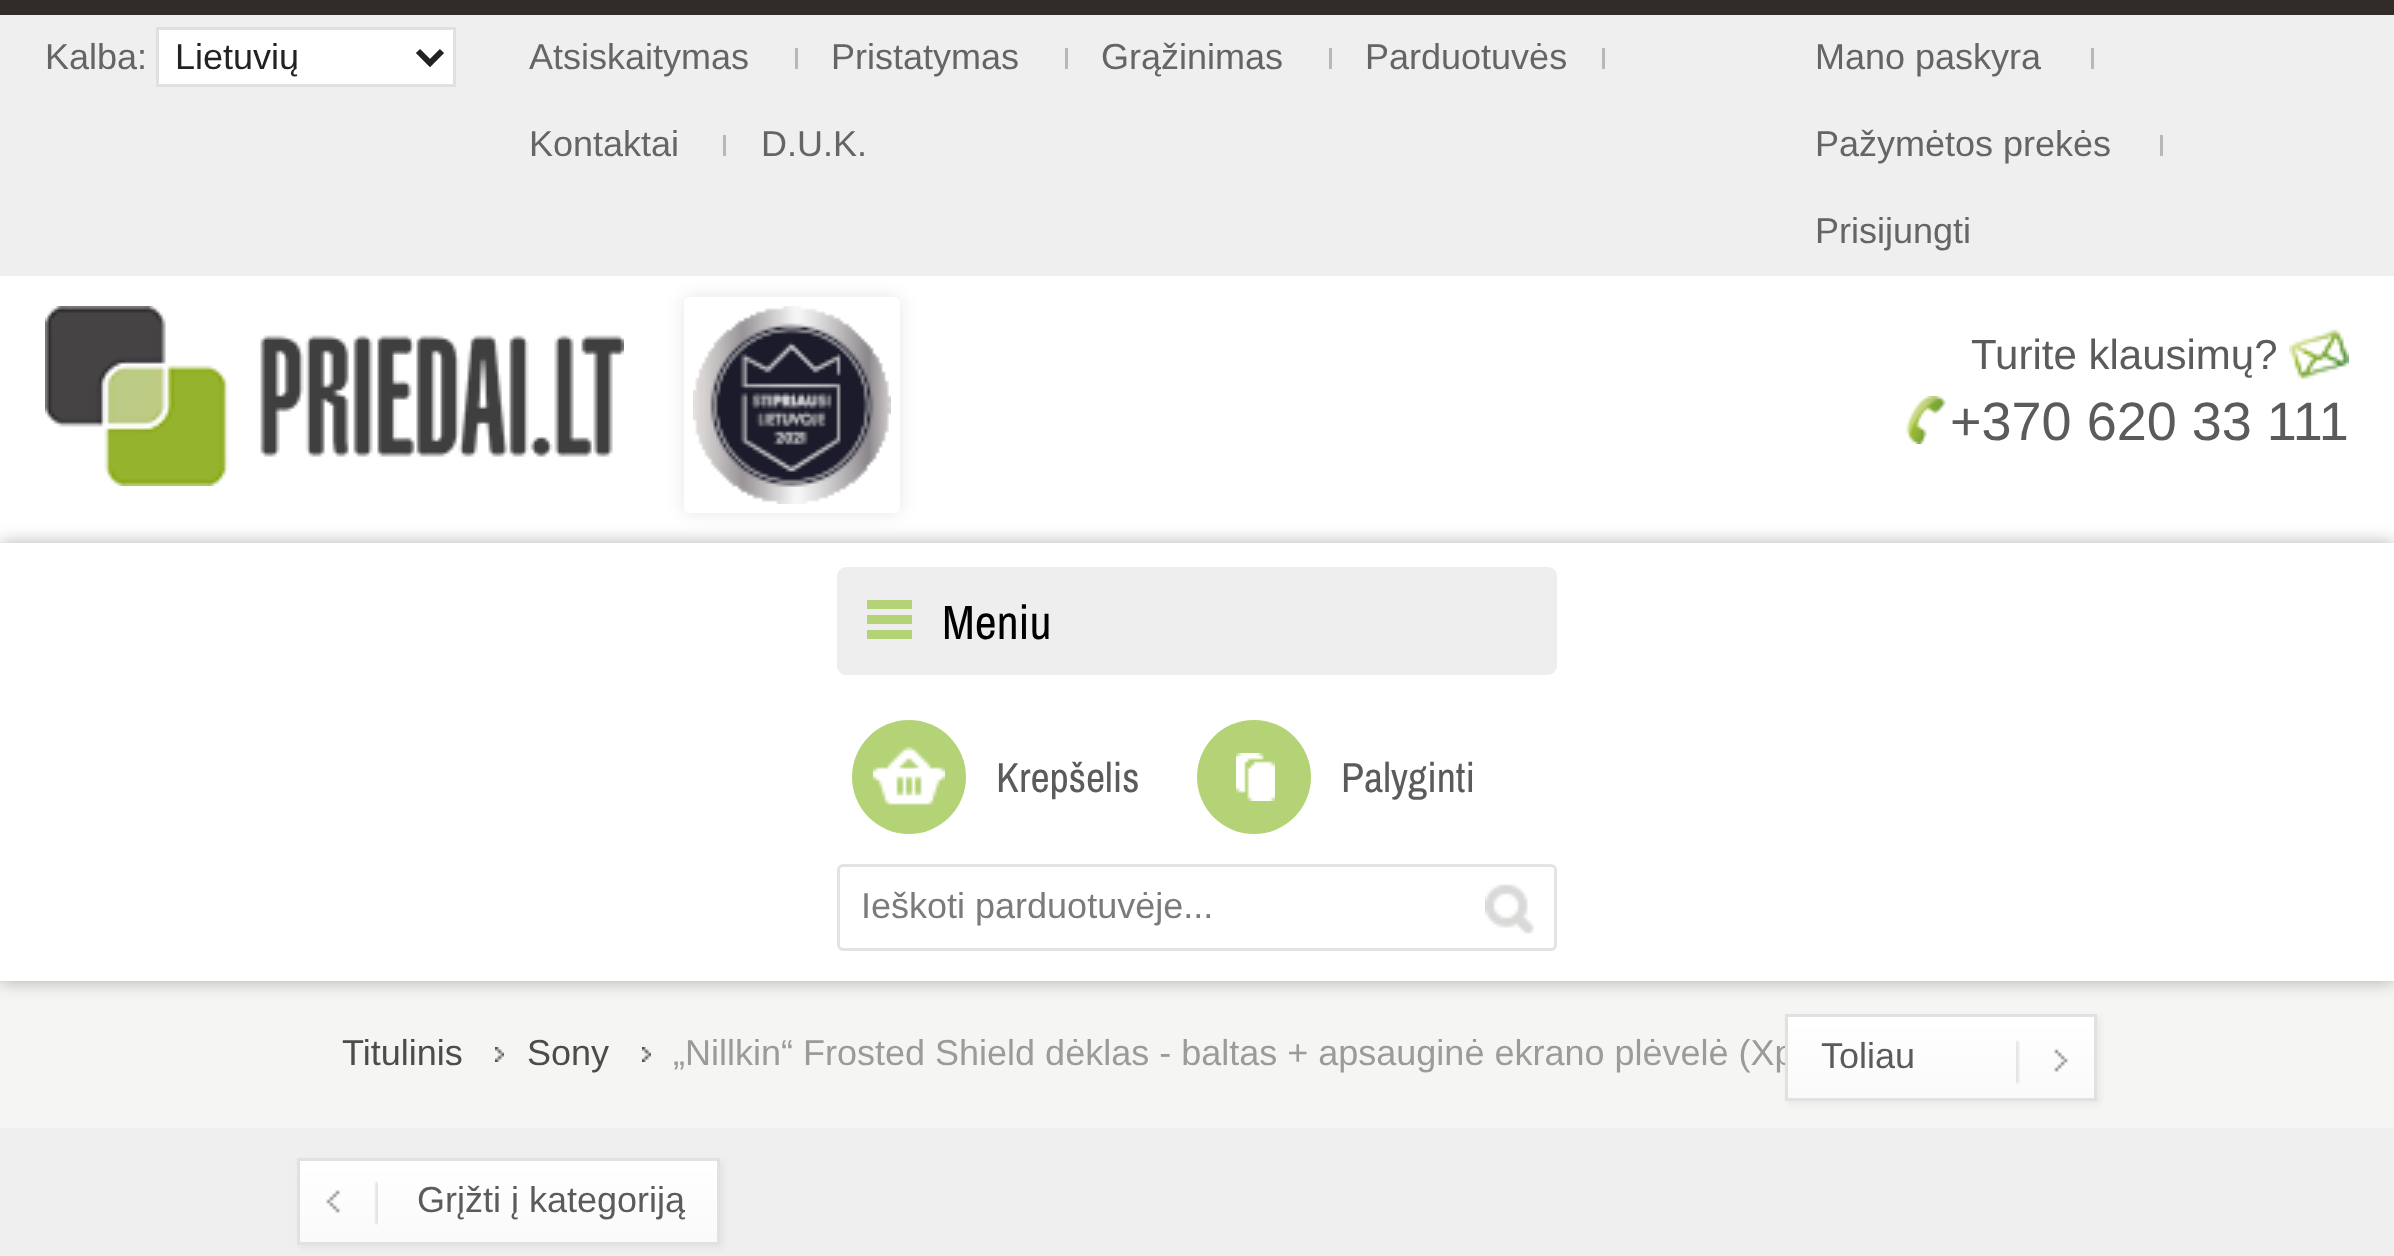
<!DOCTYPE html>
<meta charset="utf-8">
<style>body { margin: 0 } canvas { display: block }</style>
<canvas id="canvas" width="2394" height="1256"></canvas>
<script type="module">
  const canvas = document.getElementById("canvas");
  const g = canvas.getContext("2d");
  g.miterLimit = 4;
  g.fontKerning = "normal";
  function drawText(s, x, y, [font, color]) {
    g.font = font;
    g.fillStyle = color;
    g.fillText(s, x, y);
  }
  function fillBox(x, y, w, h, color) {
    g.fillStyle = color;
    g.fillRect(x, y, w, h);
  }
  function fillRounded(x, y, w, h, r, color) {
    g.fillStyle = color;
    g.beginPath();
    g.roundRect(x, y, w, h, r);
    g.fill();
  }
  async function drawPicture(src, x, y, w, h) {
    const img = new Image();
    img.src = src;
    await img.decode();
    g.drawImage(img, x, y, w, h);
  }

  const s1 = ["36px Liberation Sans", "#656565"];
  const s2 = ["36px Liberation Sans", "#222222"];
  const s3 = ["42px Liberation Sans", "#5B5B5B"];
  const s4 = ["54px Liberation Sans", "#5B5B5B"];
  const s5 = ["48px Archivo Narrow", "#000000"];
  const s6 = ["42px Archivo Narrow", "#5B5B5B"];
  const s7 = ["36px Liberation Sans", "#7B7B7B"];
  const s8 = ["36px Liberation Sans", "#4D4C4B"];
  const s9 = ["36px Liberation Sans", "#9B9B9A"];
  const s10 = ["36px Liberation Sans", "#5B5B5B"];

  fillBox(0, 0, 2394, 1256, "#EFEFEF");
  fillBox(0, 0, 2394, 15, "#322C29");
  fillBox(0, 276, 2394, 705, "#FFFFFF");
  drawText("Kalba:", 45, 69, s1);
  g.fillStyle = "#FFFFFF";
  g.beginPath();
  g.rect(157.5, 28.5, 297, 57);
  g.fill();
  g.strokeStyle = "#E0E0E0";
  g.lineWidth = 3;
  g.stroke();
  g.beginPath();
  g.moveTo(418, 51);
  g.lineTo(430, 63);
  g.lineTo(442, 51);
  g.strokeStyle = "#222222";
  g.lineWidth = 6;
  g.stroke();
  drawText("Lietuvių", 175, 69, s2);
  drawText("Atsiskaitymas", 529, 69, s1);
  fillBox(795, 48, 3, 21, "#B8B8B8");
  drawText("Pristatymas", 831, 69, s1);
  fillBox(1065, 48, 3, 21, "#B8B8B8");
  drawText("Grąžinimas", 1101, 69, s1);
  fillBox(1329, 48, 3, 21, "#B8B8B8");
  drawText("Parduotuvės", 1365, 69, s1);
  fillBox(1602, 48, 3, 21, "#B8B8B8");
  drawText("Kontaktai", 529, 156, s1);
  fillBox(723, 135, 3, 21, "#B8B8B8");
  drawText("D.U.K.", 761, 156, s1);
  drawText("Mano paskyra", 1815, 69, s1);
  fillBox(2091, 48, 3, 21, "#B8B8B8");
  drawText("Pažymėtos prekės", 1815, 156, s1);
  fillBox(2160, 135, 3, 21, "#B8B8B8");
  drawText("Prisijungti", 1815, 243, s1);
  await drawPicture("pic1.png", 45, 306, 579, 180);
  g.save();
  g.beginPath();
  g.moveTo(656, 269);
  g.lineTo(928, 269);
  g.lineTo(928, 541);
  g.lineTo(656, 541);
  g.closePath();
  g.moveTo(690, 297);
  g.lineTo(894, 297);
  g.bezierCurveTo(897.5, 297, 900, 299.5, 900, 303);
  g.lineTo(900, 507);
  g.bezierCurveTo(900, 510.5, 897.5, 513, 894, 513);
  g.lineTo(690, 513);
  g.bezierCurveTo(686.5, 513, 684, 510.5, 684, 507);
  g.lineTo(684, 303);
  g.bezierCurveTo(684, 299.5, 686.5, 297, 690, 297);
  g.closePath();
  g.clip("evenodd");
  g.fillStyle = "rgba(0, 0, 0, 0.1)";
  g.filter = "blur(9px)";
  g.beginPath();
  g.roundRect(684, 297, 216, 216, 6);
  g.fill();
  g.filter = "none";
  g.restore();
  await drawPicture("pic2.png", 693, 306, 198, 198);
  drawText("Turite klausimų?", 1971, 369, s3);
  await drawPicture("pic3.png", 2289, 329, 60, 50);
  await drawPicture("pic4.png", 1906, 396, 40, 48);
  drawText("+370 620 33 111", 1950, 440, s4);
  fillBox(0, 981, 2394, 147, "#F5F5F3");
  g.save();
  g.beginPath();
  g.moveTo(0, 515);
  g.lineTo(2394, 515);
  g.lineTo(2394, 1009);
  g.lineTo(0, 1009);
  g.closePath();
  g.moveTo(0, 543);
  g.lineTo(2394, 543);
  g.lineTo(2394, 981);
  g.lineTo(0, 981);
  g.closePath();
  g.clip("evenodd");
  g.fillStyle = "rgba(0, 0, 0, 0.3)";
  g.filter = "blur(9px)";
  g.beginPath();
  g.rect(0, 543, 2394, 438);
  g.fill();
  g.filter = "none";
  g.restore();
  fillRounded(837, 567, 720, 108, 9, "#EEEEEE");
  fillBox(867, 600, 45, 9, "#B3D376");
  fillBox(867, 615, 45, 9, "#B3D376");
  fillBox(867, 630, 45, 9, "#B3D376");
  drawText("Meniu", 942, 639, s5);
  g.fillStyle = "#B3D376";
  g.beginPath();
  g.arc(909, 777, 57, 0, Math.PI * 2);
  g.fill();
  await drawPicture("pic5.png", 873, 747, 72, 58);
  drawText("Krepšelis", 996, 792, s6);
  g.fillStyle = "#B3D376";
  g.beginPath();
  g.arc(1254, 777, 57, 0, Math.PI * 2);
  g.fill();
  await drawPicture("pic6.png", 1236, 753, 39, 48);
  drawText("Palyginti", 1341, 792, s6);
  g.beginPath();
  g.roundRect(838.5, 865.5, 717, 84, 4.5);
  g.strokeStyle = "#E3E3E3";
  g.lineWidth = 3;
  g.stroke();
  drawText("Ieškoti parduotuvėje...", 861, 918, s7);
  await drawPicture("pic7.png", 1485, 884, 49, 50);
  drawText("Titulinis", 342, 1065, s8);
  await drawPicture("pic8.png", 495, 1047, 9, 15);
  drawText("Sony", 527, 1065, s8);
  await drawPicture("pic9.png", 642, 1047, 9, 15);
  drawText("„Nillkin“ Frosted Shield dėklas - baltas + apsauginė ekrano plėvelė (Xp", 673, 1065, s9);
  g.fillStyle = "rgba(0, 0, 0, 0.05)";
  g.filter = "blur(3px)";
  g.beginPath();
  g.rect(1788, 1017, 312, 87);
  g.fill();
  g.filter = "none";
  await drawPicture("pic10.png", 1788, 1017, 306, 81);
  g.strokeStyle = "#E1E1E1";
  g.strokeRect(1786.5, 1015.5, 309, 84);
  await drawPicture("pic11.png", 2016, 1040, 52, 44);
  drawText("Toliau", 1821, 1068, s10);
  g.fillStyle = "rgba(0, 0, 0, 0.05)";
  g.filter = "blur(3px)";
  g.beginPath();
  g.rect(300, 1161, 423, 87);
  g.fill();
  g.filter = "none";
  await drawPicture("pic12.png", 300, 1161, 417, 81);
  g.strokeRect(298.5, 1159.5, 420, 84);
  await drawPicture("pic13.png", 326, 1181, 52, 44);
  drawText("Grįžti į kategoriją", 417, 1212, s10);
</script>
